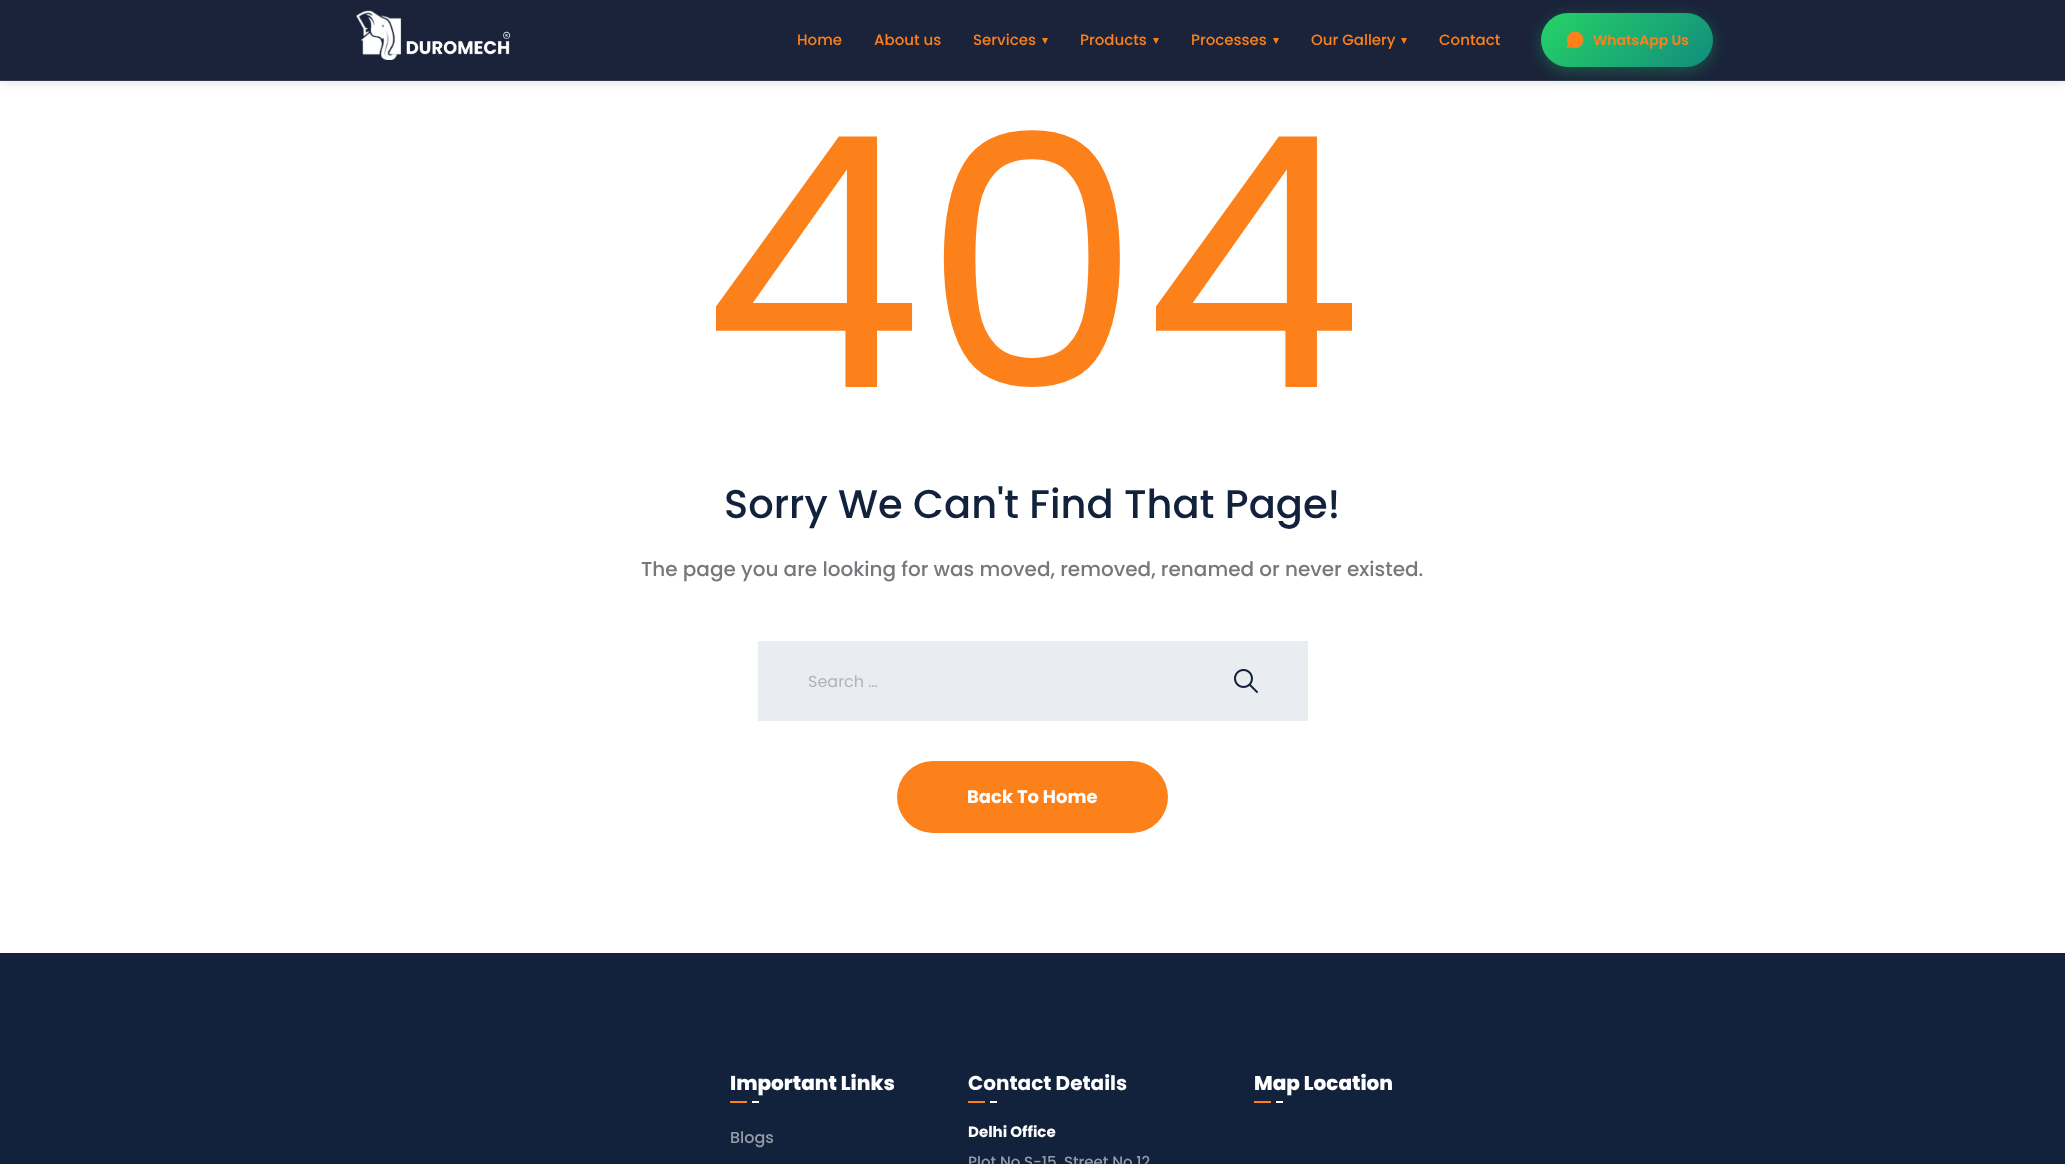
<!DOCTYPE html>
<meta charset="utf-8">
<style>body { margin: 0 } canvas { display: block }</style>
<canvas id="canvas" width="2065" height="1164"></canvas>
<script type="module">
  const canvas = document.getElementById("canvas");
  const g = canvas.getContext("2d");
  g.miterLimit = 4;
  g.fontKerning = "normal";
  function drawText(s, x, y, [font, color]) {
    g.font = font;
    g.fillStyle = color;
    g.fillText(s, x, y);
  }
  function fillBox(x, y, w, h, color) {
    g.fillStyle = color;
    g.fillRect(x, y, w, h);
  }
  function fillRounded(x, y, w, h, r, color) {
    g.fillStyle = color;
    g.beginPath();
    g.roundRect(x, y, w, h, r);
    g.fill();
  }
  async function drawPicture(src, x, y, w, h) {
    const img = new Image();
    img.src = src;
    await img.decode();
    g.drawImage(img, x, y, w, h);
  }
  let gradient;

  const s1 = ["500 15px Poppins", "#FC811B"];
  const s2 = ["12px DejaVu Sans", "#FC811B"];
  const s3 = ["600 14px Poppins", "#FC811B"];
  const s4 = ["350px Poppins", "#FC811B"];
  const s5 = ["500 40px Poppins", "#13223C"];
  const s6 = ["500 20px Poppins", "#76787C"];
  const s7 = ["16px Poppins", "#B0B3B7"];
  const s8 = ["bold 18px Poppins", "#FFFFFF"];
  const s9 = ["800 20px Poppins", "#FFFFFF"];
  const s10 = ["500 16px Poppins", "#959CA9"];
  const s11 = ["bold 20px Poppins", "#FFFFFF"];
  const s12 = ["bold 15px Poppins", "#FFFFFF"];
  const s13 = ["500 15px Poppins", "#959CA9"];

  fillBox(0, 0, 2065, 1164, "#FFFFFF");
  g.fillStyle = "rgba(0, 0, 0, 0.1)";
  g.filter = "blur(5px)";
  g.beginPath();
  g.rect(0, 2, 2065, 81);
  g.fill();
  g.filter = "none";
  fillBox(0, 0, 2065, 80, "#1A233A");
  fillBox(0, 80, 2065, 1, "#31394E");
  await drawPicture("pic1.png", 356, 10, 155, 50);
  drawText("Home", 797, 45, s1);
  drawText("About us", 874, 45, s1);
  drawText("Services", 973, 45, s1);
  drawText("▾", 1042, 44, s2);
  drawText("Products", 1080, 45, s1);
  drawText("▾", 1153, 44, s2);
  drawText("Processes", 1191, 45, s1);
  drawText("▾", 1273, 44, s2);
  drawText("Our Gallery", 1311, 45, s1);
  drawText("▾", 1401, 44, s2);
  drawText("Contact", 1439, 45, s1);
  g.fillStyle = "rgba(37, 211, 102, 0.3)";
  g.filter = "blur(7.5px)";
  g.beginPath();
  g.roundRect(1541, 17, 172, 54, 27);
  g.fill();
  g.filter = "none";
  gradient = g.createLinearGradient(1571, -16, 1684, 96);
  gradient.addColorStop(0, "#25D366");
  gradient.addColorStop(1, "#128C7E");
  g.fillStyle = gradient;
  g.beginPath();
  g.roundRect(1541, 13, 172, 54, 27);
  g.fill();
  await drawPicture("pic2.png", 1566, 31, 18, 18);
  drawText("WhatsApp Us", 1593, 45, s3);
  drawText("404", 702, 387, s4);
  drawText("Sorry We Can't Find That Page!", 724, 518, s5);
  drawText("The page you are looking for was moved, removed, renamed or never existed.", 641, 576, s6);
  fillBox(758, 641, 550, 80, "#E9EDF2");
  drawText("Search …", 808, 687, s7);
  await drawPicture("pic3.png", 1234, 669, 24, 24);
  fillRounded(897, 761, 271, 72, 36, "#FC811B");
  drawText("Back To Home", 967, 803, s8);
  fillBox(0, 953, 2065, 211, "#13223C");
  drawText("Important Links", 730, 1090, s9);
  fillBox(730, 1101, 17, 2, "#FC811B");
  fillBox(752, 1101, 7, 2, "#FFFFFF");
  drawText("Blogs", 730, 1143, s10);
  drawText("Contact Details", 968, 1090, s11);
  fillBox(968, 1101, 17, 2, "#FC811B");
  fillBox(990, 1101, 7, 2, "#FFFFFF");
  drawText("Delhi Office", 968, 1137, s12);
  drawText("Plot No.S-15, Street No.12", 968, 1167, s13);
  drawText("Map Location", 1254, 1090, s9);
  fillBox(1254, 1101, 17, 2, "#FC811B");
  fillBox(1276, 1101, 7, 2, "#FFFFFF");
</script>
